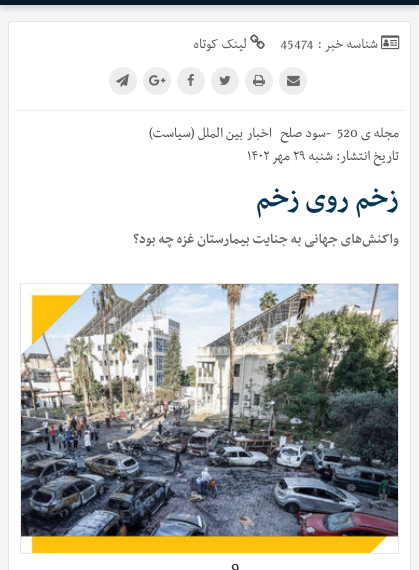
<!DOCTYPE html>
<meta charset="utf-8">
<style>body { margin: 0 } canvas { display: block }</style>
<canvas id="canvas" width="419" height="570"></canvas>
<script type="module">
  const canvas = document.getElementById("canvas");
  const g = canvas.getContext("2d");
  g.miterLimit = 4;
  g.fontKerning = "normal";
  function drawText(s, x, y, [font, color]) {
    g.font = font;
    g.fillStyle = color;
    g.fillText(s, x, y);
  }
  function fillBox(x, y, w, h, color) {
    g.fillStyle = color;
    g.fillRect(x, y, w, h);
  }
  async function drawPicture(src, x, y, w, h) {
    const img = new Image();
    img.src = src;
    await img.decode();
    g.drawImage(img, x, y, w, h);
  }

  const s1 = ["16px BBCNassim", "#5D5D5D"];
  const s2 = ["16px BBCNassim", "#515151"];
  const s3 = ["bold 32px BBCNassim", "#043651"];
  const s4 = ["bold 16px BBCNassim", "#6F6F6F"];
  const s5 = ["20px BBCNassim", "#333333"];

  fillBox(0, 0, 419, 570, "#F4F4F2");
  g.fillStyle = "#D4D4D4";
  g.filter = "blur(2.5px)";
  g.beginPath();
  g.rect(0, -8, 419, 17);
  g.fill();
  g.filter = "none";
  fillBox(0, 0, 419, 5, "#07172A");
  g.fillStyle = "#FFFFFF";
  g.beginPath();
  g.roundRect(8.5, 21.5, 402, 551, 1.5);
  g.fill();
  g.strokeStyle = "#E4E4E4";
  g.stroke();
  fillBox(14, 110, 391, 1, "#EFEFEF");
  await drawPicture("pic1.png", 381, 35, 19, 15);
  g.direction = "rtl";
  drawText("شناسه خبر :", 378, 48, s1);
  g.direction = "ltr";
  drawText("45474", 280, 48, s1);
  await drawPicture("pic2.png", 250, 34, 15, 15);
  g.direction = "rtl";
  drawText("لینک کوتاه", 247, 48, s1);
  g.fillStyle = "#EDEDED";
  g.beginPath();
  g.arc(293, 81, 14, 0, Math.PI * 2);
  g.fill();
  await drawPicture("pic3.png", 287, 75, 13, 11);
  g.beginPath();
  g.arc(259, 81, 14, 0, Math.PI * 2);
  g.fill();
  await drawPicture("pic4.png", 253, 74, 12, 12);
  g.beginPath();
  g.arc(225, 81, 14, 0, Math.PI * 2);
  g.fill();
  await drawPicture("pic5.png", 219, 75, 12, 10);
  g.beginPath();
  g.arc(191, 81, 14, 0, Math.PI * 2);
  g.fill();
  await drawPicture("pic6.png", 187, 74, 7, 12);
  g.beginPath();
  g.arc(157, 81, 14, 0, Math.PI * 2);
  g.fill();
  await drawPicture("pic7.png", 149, 75, 17, 11);
  g.beginPath();
  g.arc(123, 81, 14, 0, Math.PI * 2);
  g.fill();
  await drawPicture("pic8.png", 116, 74, 13, 13);
  drawText("مجله ی", 399, 137, s2);
  g.direction = "ltr";
  drawText("520", 337, 137, s2);
  drawText("-", 326, 137, s2);
  g.direction = "rtl";
  drawText("سود صلح", 326, 137, s2);
  drawText("اخبار", 272, 137, s2);
  drawText("بین الملل (سیاست)", 243, 137, s2);
  drawText("تاریخ انتشار:", 399, 160, s2);
  drawText("شنبه", 333, 160, s2);
  g.direction = "ltr";
  drawText("۲۹", 293, 160, s2);
  g.direction = "rtl";
  drawText("مهر", 290, 160, s2);
  g.direction = "ltr";
  drawText("۱۴۰۲", 247, 160, s2);
  g.direction = "rtl";
  drawText("زخم روی زخم", 399, 206, s3);
  drawText("واکنش‌های جهانی به جنایت بیمارستان غزه چه بود؟", 399, 243, s4);
  g.strokeStyle = "#E6E6E6";
  g.strokeRect(20.5, 283.5, 378, 270);
  await drawPicture("pic9.png", 21, 284, 377, 269);
  g.direction = "ltr";
  drawText("9", 231, 573, s5);
</script>
